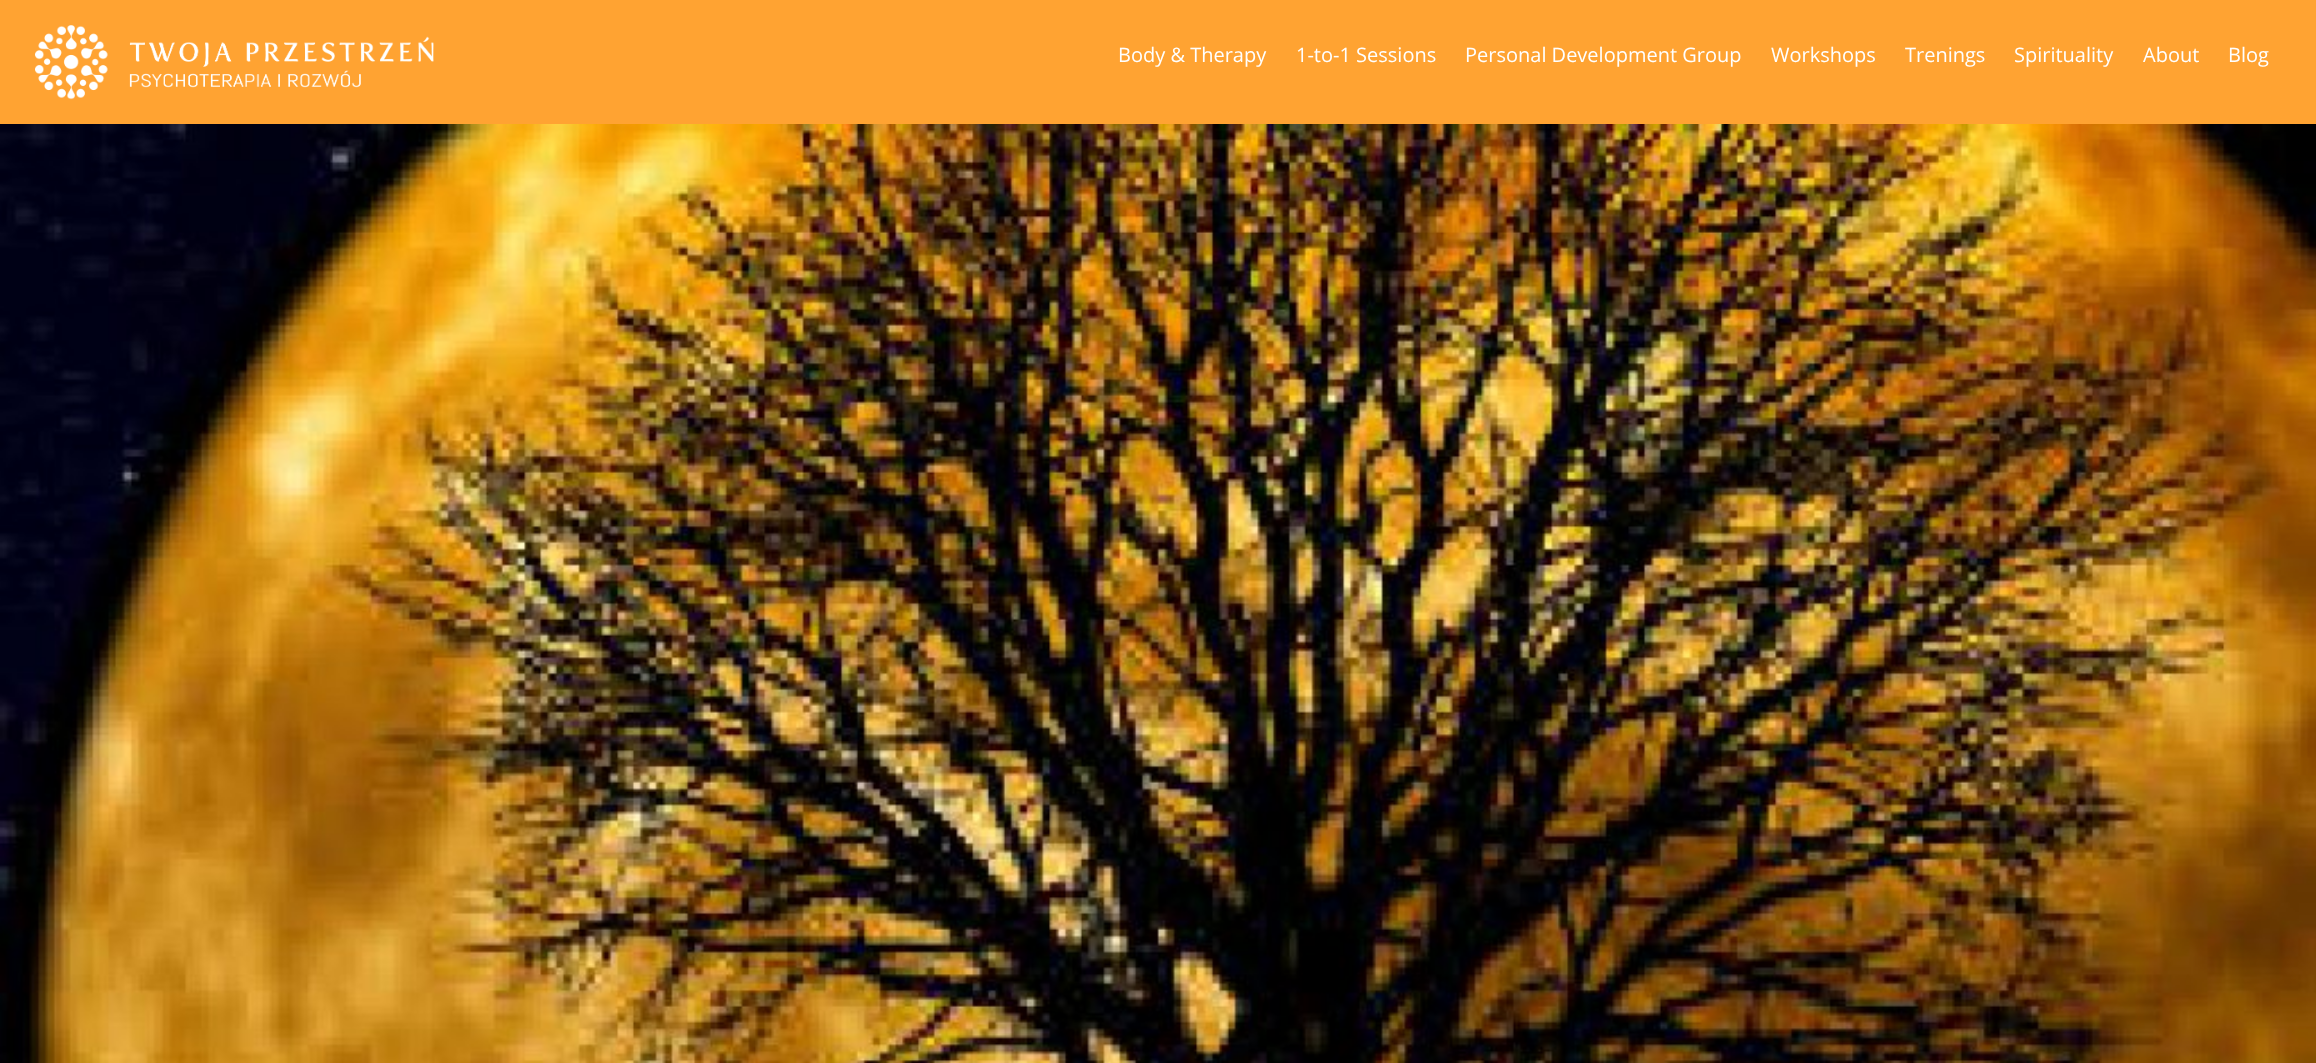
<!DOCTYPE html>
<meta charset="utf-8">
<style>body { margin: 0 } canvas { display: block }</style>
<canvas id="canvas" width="2316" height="1063"></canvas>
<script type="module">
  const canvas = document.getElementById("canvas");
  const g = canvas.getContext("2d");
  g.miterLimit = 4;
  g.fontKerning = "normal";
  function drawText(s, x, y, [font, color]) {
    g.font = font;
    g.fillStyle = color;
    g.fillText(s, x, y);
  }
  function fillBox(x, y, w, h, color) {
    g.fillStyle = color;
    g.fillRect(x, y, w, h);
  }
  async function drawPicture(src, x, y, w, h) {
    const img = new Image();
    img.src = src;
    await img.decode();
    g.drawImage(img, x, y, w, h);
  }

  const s1 = ["20px Open Sans", "#FFFFFF"];

  fillBox(0, 0, 2316, 1063, "#FFFFFF");
  fillBox(0, 0, 2316, 124, "#FFA332");
  await drawPicture("pic1.png", 35, 25, 399, 75);
  drawText("Body & Therapy", 1118, 62, s1);
  drawText("1-to-1 Sessions", 1296, 62, s1);
  drawText("Personal Development Group", 1465, 62, s1);
  drawText("Workshops", 1771, 62, s1);
  drawText("Trenings", 1905, 62, s1);
  drawText("Spirituality", 2014, 62, s1);
  drawText("About", 2143, 62, s1);
  drawText("Blog", 2228, 62, s1);
  await drawPicture("pic2.png", 0, 124, 2316, 939);
</script>
